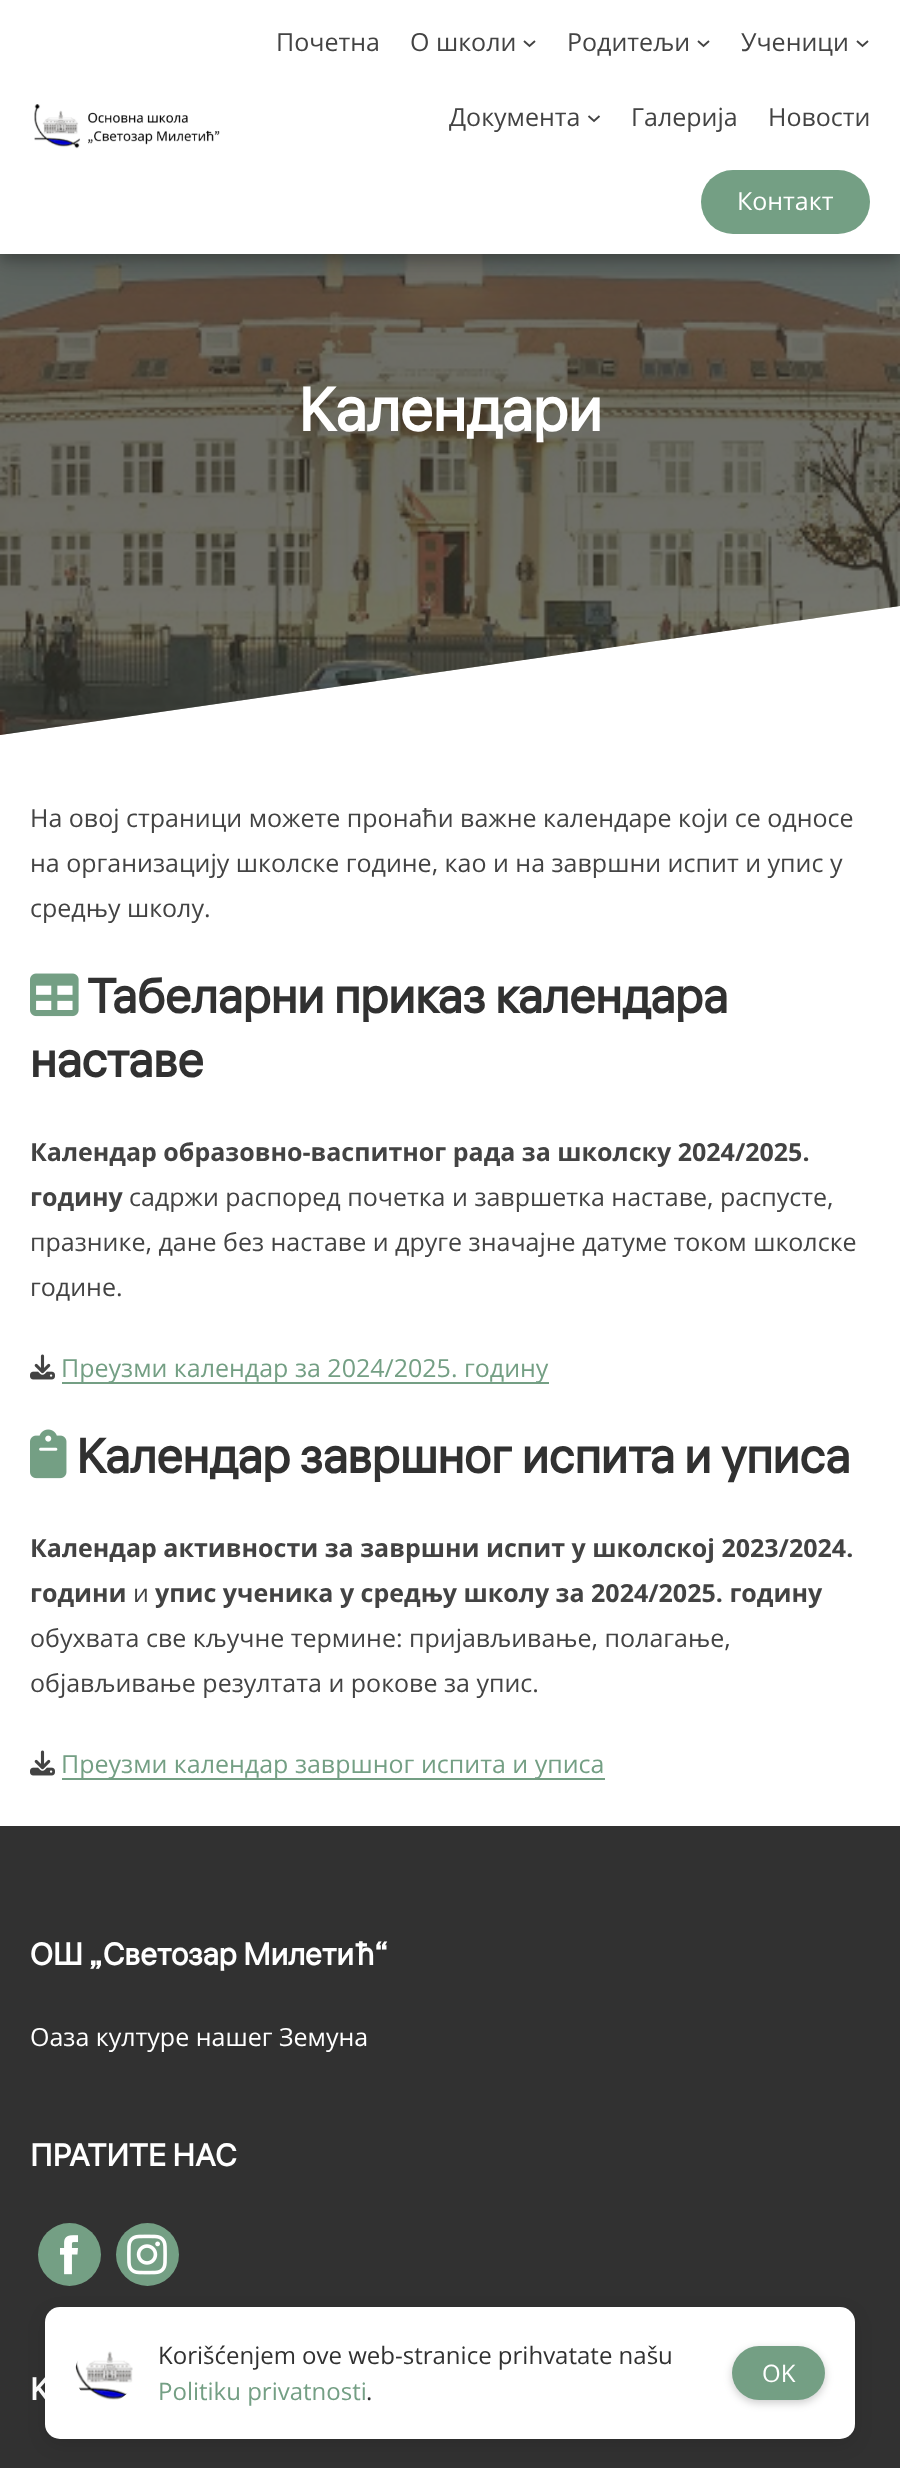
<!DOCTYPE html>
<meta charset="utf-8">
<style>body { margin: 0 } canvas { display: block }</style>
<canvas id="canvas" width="900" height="2468"></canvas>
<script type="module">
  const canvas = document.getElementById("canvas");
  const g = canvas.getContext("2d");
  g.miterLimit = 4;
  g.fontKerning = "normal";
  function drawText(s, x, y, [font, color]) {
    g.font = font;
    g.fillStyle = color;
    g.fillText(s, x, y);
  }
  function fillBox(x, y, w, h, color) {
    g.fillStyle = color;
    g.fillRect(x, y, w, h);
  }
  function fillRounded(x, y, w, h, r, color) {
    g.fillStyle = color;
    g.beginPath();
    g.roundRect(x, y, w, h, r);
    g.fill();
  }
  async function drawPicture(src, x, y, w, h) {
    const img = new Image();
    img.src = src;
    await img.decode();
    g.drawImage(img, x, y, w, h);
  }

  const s1 = ["25px Open Sans", "#434343"];
  const s2 = ["25px Open Sans", "#FFFFFF"];
  const s3 = ["bold 61px Liter", "#FFFFFF"];
  const s4 = ["bold 48.6px Liter", "#313131"];
  const s5 = ["bold 25px Open Sans", "#434343"];
  const s6 = ["25px Open Sans", "#749F84"];
  const s7 = ["bold 31.1px Liter", "#FFFFFF"];
  const s8 = ["24px Open Sans", "#313131"];
  const s9 = ["24px Open Sans", "#749F84"];
  const s10 = ["24px Open Sans", "#FFFFFF"];

  fillBox(0, 0, 900, 2468, "#FFFFFF");
  await drawPicture("pic2.png", 0, 254, 900, 481);
  g.fillStyle = "rgba(49, 49, 49, 0.5)";
  g.beginPath();
  g.moveTo(0, 90);
  g.lineTo(0, 735);
  g.lineTo(900, 606);
  g.lineTo(900, 90);
  g.closePath();
  g.fill();
  g.fillStyle = "rgba(0, 0, 0, 0.19)";
  g.filter = "blur(15px)";
  g.beginPath();
  g.rect(0, 9, 900, 254);
  g.fill();
  g.filter = "none";
  g.fillStyle = "rgba(0, 0, 0, 0.2)";
  g.filter = "blur(6px)";
  g.beginPath();
  g.rect(0, 6, 900, 254);
  g.fill();
  g.filter = "none";
  fillBox(0, 0, 900, 254, "#FFFFFF");
  await drawPicture("pic1.png", 34, 104, 186, 45);
  drawText("Почетна", 276, 51, s1);
  drawText("О школи", 410, 51, s1);
  g.beginPath();
  g.moveTo(524, 41);
  g.lineTo(529.5, 46);
  g.lineTo(535, 41);
  g.strokeStyle = "#434343";
  g.lineWidth = 1.9;
  g.stroke();
  drawText("Родитељи", 567, 51, s1);
  g.beginPath();
  g.moveTo(698, 41);
  g.lineTo(703.5, 46);
  g.lineTo(709, 41);
  g.stroke();
  drawText("Ученици", 741, 51, s1);
  g.beginPath();
  g.moveTo(857, 41);
  g.lineTo(862.5, 46);
  g.lineTo(868, 41);
  g.stroke();
  drawText("Документа", 449, 126, s1);
  g.beginPath();
  g.moveTo(588.5, 116);
  g.lineTo(594, 121);
  g.lineTo(599.5, 116);
  g.stroke();
  drawText("Галерија", 631, 126, s1);
  drawText("Новости", 768, 126, s1);
  fillRounded(701, 170, 169, 64, 32, "#749F84");
  drawText("Контакт", 737, 210, s2);
  drawText("Kалендари", 298, 431, s3);
  drawText("На овој страници можете пронаћи важне календаре који се односе", 30, 827, s1);
  drawText("на организацију школске године, као и на завршни испит и упис у", 30, 872, s1);
  drawText("средњу школу.", 30, 917, s1);
  await drawPicture("pic3.png", 30, 973, 49, 44);
  drawText("Табеларни приказ календара", 87, 1013, s4);
  drawText("наставе", 30, 1077, s4);
  drawText("Календар образовно-васпитног рада за школску 2024/2025.", 30, 1161, s5);
  drawText("годину", 30, 1206, s5);
  drawText("садржи распоред почетка и завршетка наставе, распусте,", 129, 1206, s1);
  drawText("празнике, дане без наставе и друге значајне датуме током школске", 30, 1251, s1);
  drawText("године.", 30, 1296, s1);
  await drawPicture("pic4.png", 30, 1354, 25, 26);
  fillBox(62, 1382, 487, 2, "#749F84");
  drawText("Преузми календар за 2024/2025. годину", 61, 1377, s6);
  await drawPicture("pic5.png", 30, 1429, 37, 50);
  drawText("Календар завршног испита и уписа", 76, 1473, s4);
  drawText("Календар активности за завршни испит у школској 2023/2024.", 30, 1557, s5);
  drawText("години", 30, 1602, s5);
  drawText("и", 133, 1602, s1);
  drawText("упис ученика у средњу школу за 2024/2025. годину", 155, 1602, s5);
  drawText("обухвата све кључне термине: пријављивање, полагање,", 30, 1647, s1);
  drawText("објављивање резултата и рокове за упис.", 30, 1692, s1);
  await drawPicture("pic4.png", 30, 1750, 25, 26);
  fillBox(62, 1778, 543, 2, "#749F84");
  drawText("Преузми календар завршног испита и уписа", 61, 1773, s6);
  fillBox(0, 1826, 900, 642, "#313131");
  drawText("ОШ „Светозар Милетић“", 30, 1965, s7);
  drawText("Оаза културе нашег Земуна", 30, 2046, s2);
  drawText("ПРАТИТЕ НАС", 30, 2166, s7);
  g.fillStyle = "#749F84";
  g.beginPath();
  g.arc(69.5, 2254.5, 31.5, 0, Math.PI * 2);
  g.fill();
  await drawPicture("pic6.png", 60, 2235, 18, 40);
  g.beginPath();
  g.arc(147.5, 2254.5, 31.5, 0, Math.PI * 2);
  g.fill();
  await drawPicture("pic7.png", 127, 2234, 40, 41);
  drawText("К", 30, 2400, s7);
  g.fillStyle = "rgba(0, 0, 0, 0.1)";
  g.filter = "blur(9px)";
  g.beginPath();
  g.roundRect(45, 2313, 810, 132, 15);
  g.fill();
  g.filter = "none";
  fillRounded(45, 2307, 810, 132, 15, "#FFFFFF");
  await drawPicture("pic8.png", 75, 2351, 58, 49);
  drawText("Korišćenjem ove web-stranice prihvatate našu", 158, 2364, s8);
  drawText("Politiku privatnosti", 158, 2400, s9);
  drawText(".", 366, 2400, s8);
  g.fillStyle = "rgba(0, 0, 0, 0.2)";
  g.filter = "blur(4px)";
  g.beginPath();
  g.roundRect(732, 2349, 93, 54, 27);
  g.fill();
  g.filter = "none";
  fillRounded(732, 2346, 93, 54, 27, "#749F84");
  drawText("OK", 762, 2382, s10);
</script>
